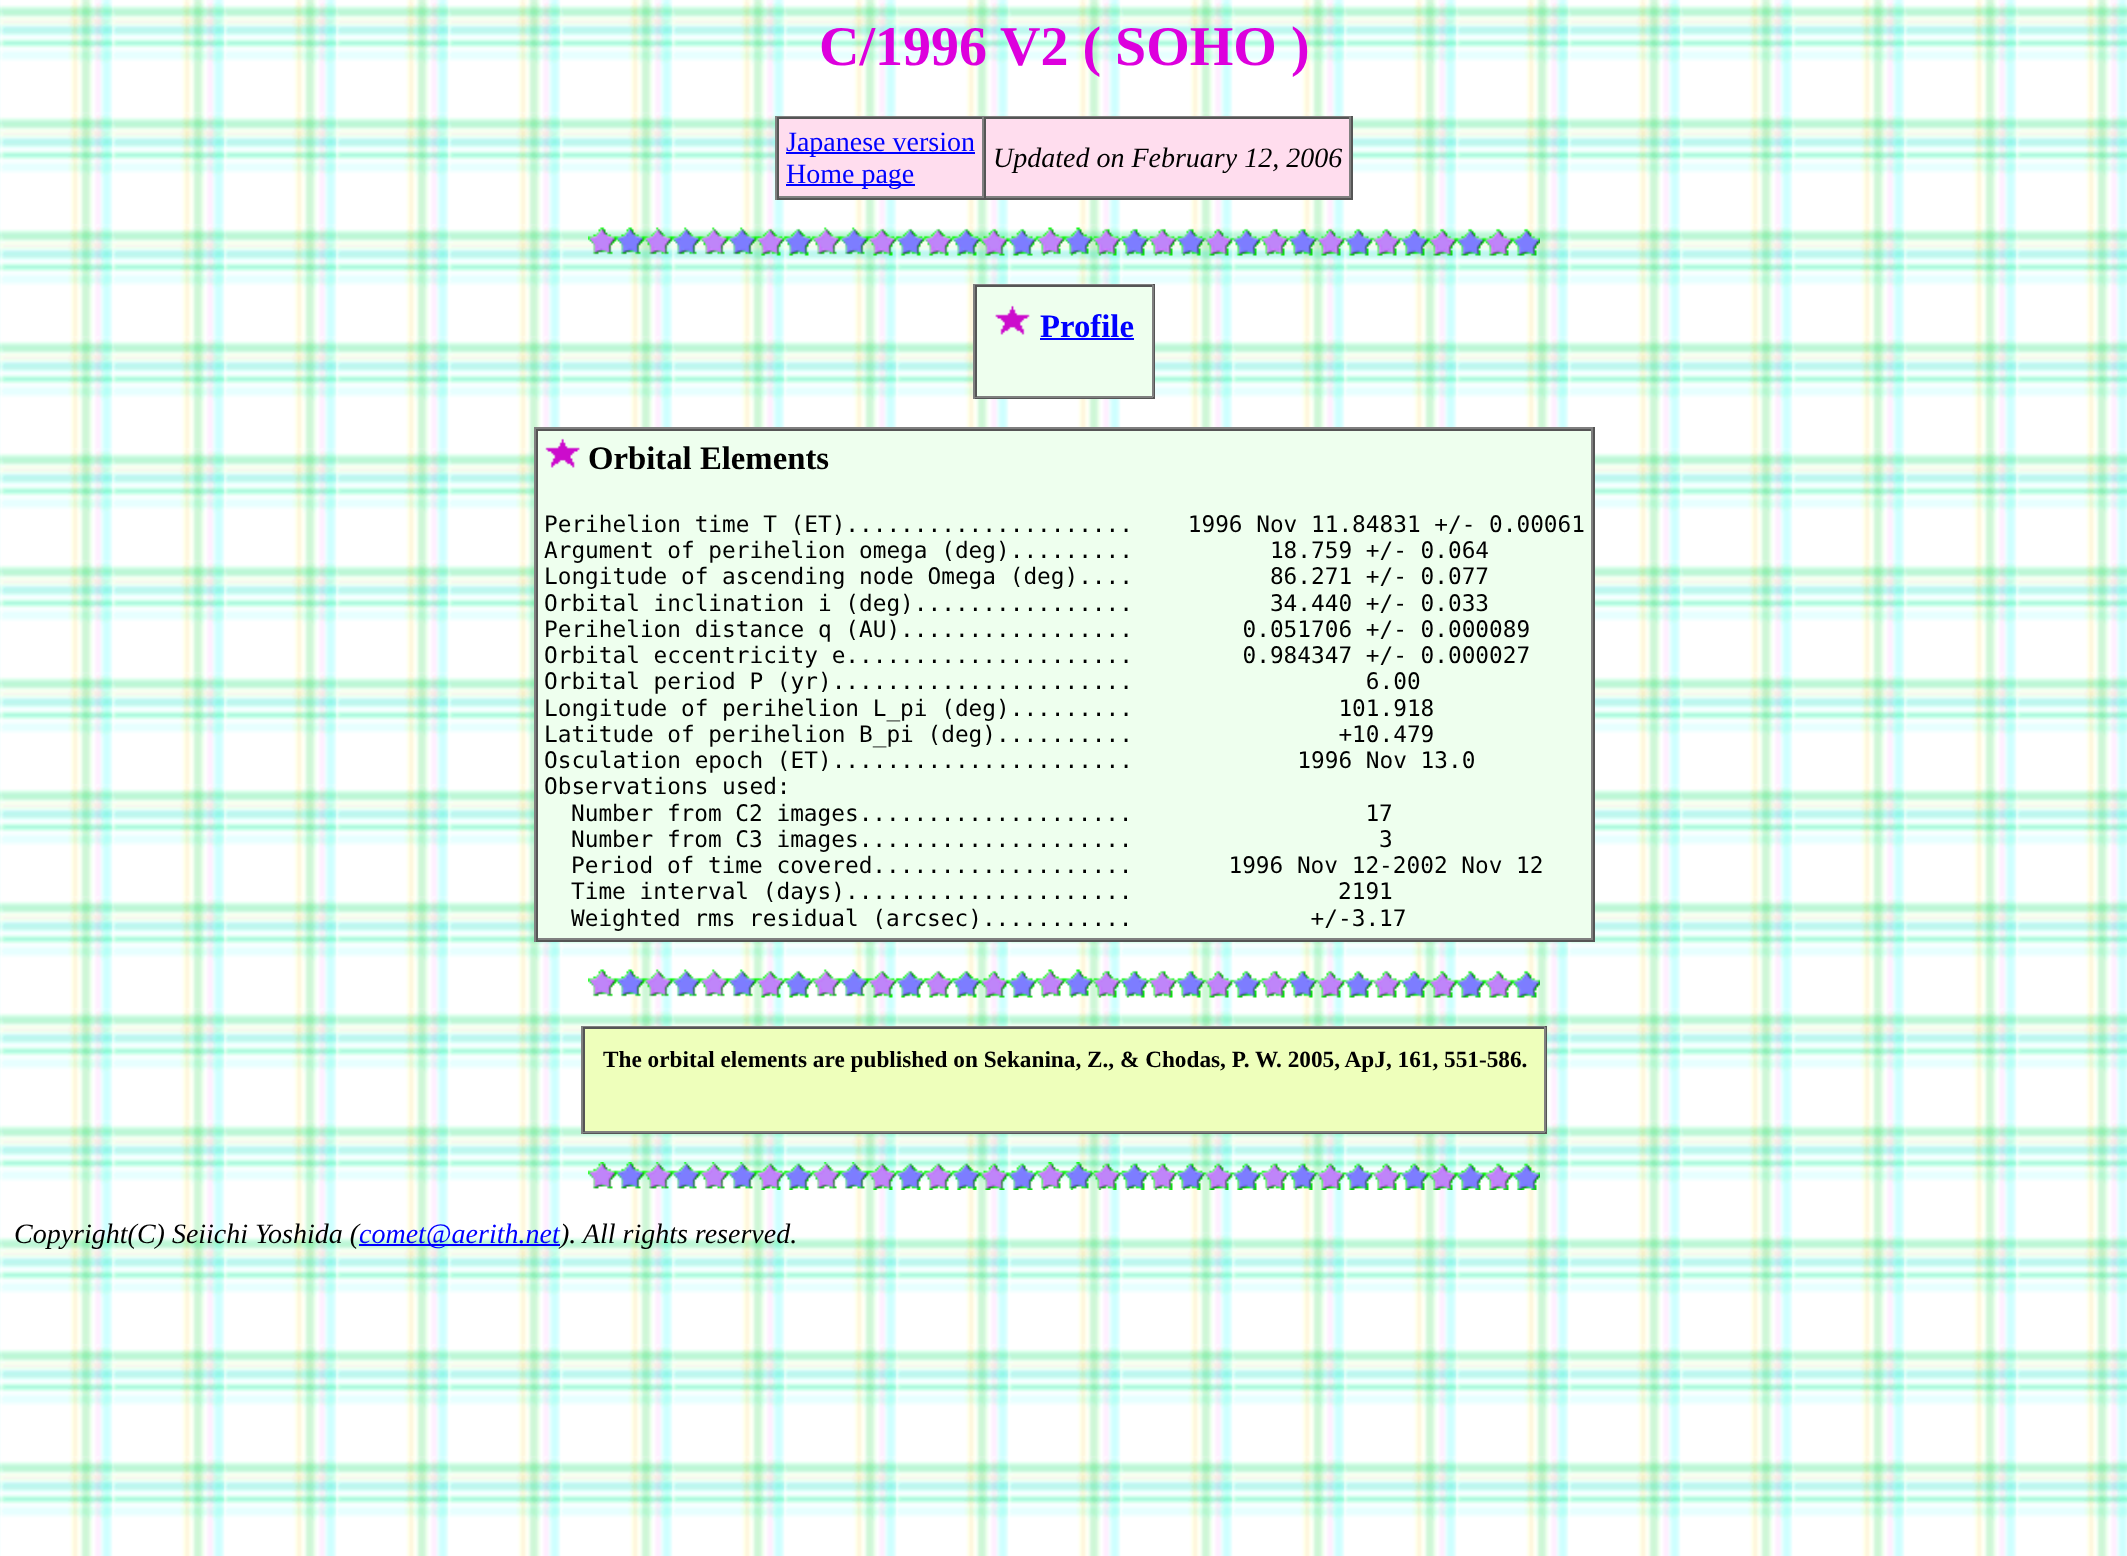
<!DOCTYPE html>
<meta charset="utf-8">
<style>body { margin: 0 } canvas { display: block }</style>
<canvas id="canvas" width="2127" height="1556"></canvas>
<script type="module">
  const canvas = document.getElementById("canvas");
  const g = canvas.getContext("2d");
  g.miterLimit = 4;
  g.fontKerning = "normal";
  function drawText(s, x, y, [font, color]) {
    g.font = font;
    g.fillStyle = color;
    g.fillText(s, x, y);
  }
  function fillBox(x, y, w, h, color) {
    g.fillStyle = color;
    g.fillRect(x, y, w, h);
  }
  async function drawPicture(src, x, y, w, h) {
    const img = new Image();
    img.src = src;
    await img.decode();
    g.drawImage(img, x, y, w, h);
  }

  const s1 = ["bold 56px Liberation Serif", "#DD00DD"];
  const s2 = ["28px Liberation Serif", "#0000FF"];
  const s3 = ["italic 28px Liberation Serif", "#000000"];
  const s4 = ["bold 32.75px Liberation Serif", "#0000FF"];
  const s5 = ["bold 32.75px Liberation Serif", "#000000"];
  const s6 = ["22.75px DejaVu Sans Mono", "#000000"];
  const s7 = ["bold 23.25px Liberation Serif", "#000000"];
  const s8 = ["italic 28px Liberation Serif", "#0000FF"];

  fillBox(0, 0, 2127, 1556, "#FFFFFF");
  await drawPicture("pic1.png", 0, 0, 2127, 1556);
  drawText("C/1996 V2 ( SOHO )", 819, 65, s1);
  fillBox(779, 119, 570, 77, "#FFDDEE");
  fillBox(775, 116, 578, 1, "#808080");
  fillBox(1351, 116, 2, 84, "#555555");
  fillBox(775, 198, 578, 2, "#555555");
  fillBox(775, 116, 2, 84, "#808080");
  fillBox(777, 117, 574, 2, "#555555");
  fillBox(982, 117, 2, 81, "#808080");
  fillBox(777, 196, 207, 2, "#808080");
  fillBox(777, 117, 2, 81, "#555555");
  fillBox(786, 152, 189, 2, "#0000FF");
  drawText("Japanese version", 786, 151, s2);
  fillBox(786, 184, 129, 2, "#0000FF");
  drawText("Home page", 786, 183, s2);
  fillBox(1349, 117, 2, 81, "#808080");
  fillBox(984, 196, 367, 2, "#808080");
  fillBox(984, 117, 2, 81, "#555555");
  drawText("Updated on February 12, 2006", 993, 167, s3);
  await drawPicture("pic2.png", 588, 227, 952, 29);
  fillBox(977, 287, 175, 109, "#EEFFEE");
  fillBox(973, 284, 182, 1, "#808080");
  fillBox(1153, 284, 2, 115, "#555555");
  fillBox(973, 397, 182, 2, "#555555");
  fillBox(973, 284, 2, 115, "#808080");
  fillBox(975, 285, 178, 2, "#555555");
  fillBox(1152, 285, 2, 112, "#808080");
  fillBox(975, 396, 178, 2, "#808080");
  fillBox(975, 285, 2, 112, "#555555");
  await drawPicture("pic3.png", 995, 305, 35, 30);
  drawText("Profile", 1040, 337, s4);
  fillBox(1040, 338, 94, 2, "#0000FF");
  fillBox(538, 431, 1053, 507, "#EEFFEE");
  fillBox(534, 427, 1060, 2, "#808080");
  fillBox(1593, 427, 2, 515, "#555555");
  fillBox(534, 940, 1060, 2, "#555555");
  fillBox(534, 427, 2, 515, "#808080");
  fillBox(536, 429, 1057, 2, "#555555");
  fillBox(1591, 429, 2, 511, "#808080");
  fillBox(536, 938, 1057, 2, "#808080");
  fillBox(536, 429, 2, 511, "#555555");
  await drawPicture("pic4.png", 545, 438, 35, 30);
  drawText("Orbital Elements", 588, 469, s5);
  drawText("Perihelion time T (ET).....................    1996 Nov 11.84831 +/- 0.00061", 544, 532, s6);
  drawText("Argument of perihelion omega (deg).........          18.759 +/- 0.064", 544, 558, s6);
  drawText("Longitude of ascending node Omega (deg)....          86.271 +/- 0.077", 544, 584, s6);
  drawText("Orbital inclination i (deg)................          34.440 +/- 0.033", 544, 611, s6);
  drawText("Perihelion distance q (AU).................        0.051706 +/- 0.000089", 544, 637, s6);
  drawText("Orbital eccentricity e.....................        0.984347 +/- 0.000027", 544, 663, s6);
  drawText("Orbital period P (yr)......................                 6.00", 544, 689, s6);
  drawText("Longitude of perihelion L_pi (deg).........               101.918", 544, 716, s6);
  drawText("Latitude of perihelion B_pi (deg)..........               +10.479", 544, 742, s6);
  drawText("Osculation epoch (ET)......................            1996 Nov 13.0", 544, 768, s6);
  drawText("Observations used:", 544, 794, s6);
  drawText("Number from C2 images....................                 17", 571, 821, s6);
  drawText("Number from C3 images....................                  3", 571, 847, s6);
  drawText("Period of time covered...................       1996 Nov 12-2002 Nov 12", 571, 873, s6);
  drawText("Time interval (days).....................               2191", 571, 899, s6);
  drawText("Weighted rms residual (arcsec)...........             +/-3.17", 571, 926, s6);
  await drawPicture("pic5.png", 588, 969, 952, 29);
  fillBox(585, 1029, 959, 102, "#EEFFBB");
  fillBox(581, 1026, 966, 1, "#808080");
  fillBox(1545, 1026, 2, 108, "#555555");
  fillBox(581, 1132, 966, 2, "#555555");
  fillBox(581, 1026, 2, 108, "#808080");
  fillBox(583, 1027, 962, 2, "#555555");
  fillBox(1544, 1027, 2, 105, "#808080");
  fillBox(583, 1131, 962, 2, "#808080");
  fillBox(583, 1027, 2, 105, "#555555");
  drawText("The orbital elements are published on Sekanina, Z., & Chodas, P. W. 2005, ApJ, 161, 551-586.", 603, 1067, s7);
  await drawPicture("pic6.png", 588, 1162, 952, 28);
  drawText("Copyright(C) Seiichi Yoshida (", 14, 1243, s3);
  fillBox(359, 1244, 201, 2, "#0000FF");
  drawText("comet@aerith.net", 359, 1243, s8);
  drawText("). All rights reserved.", 560, 1243, s3);
</script>
